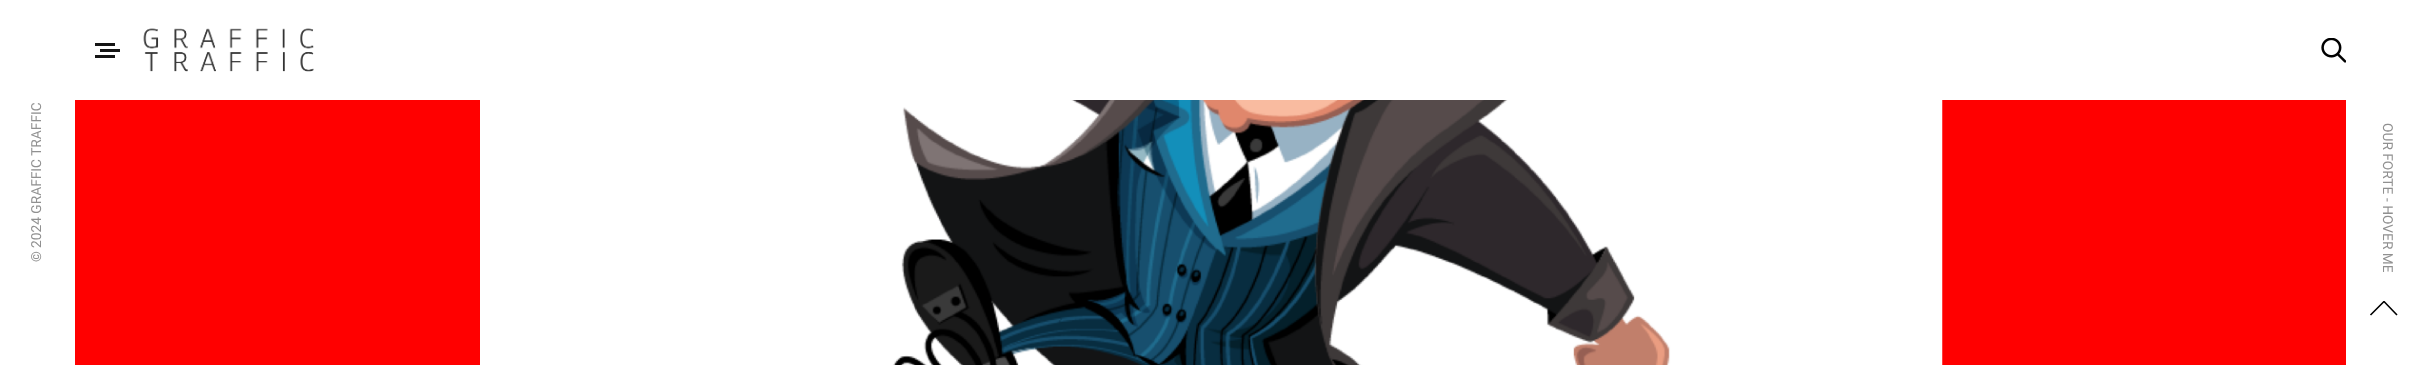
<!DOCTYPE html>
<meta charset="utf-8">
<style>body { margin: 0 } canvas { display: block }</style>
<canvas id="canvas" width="2421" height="365"></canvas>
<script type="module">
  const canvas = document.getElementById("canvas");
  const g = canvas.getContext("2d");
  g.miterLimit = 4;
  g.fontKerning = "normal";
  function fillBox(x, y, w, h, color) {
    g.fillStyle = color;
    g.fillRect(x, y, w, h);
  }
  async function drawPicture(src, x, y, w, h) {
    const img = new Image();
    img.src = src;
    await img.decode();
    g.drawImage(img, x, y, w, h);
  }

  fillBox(0, 0, 2421, 365, "#FF0000");
  fillBox(0, 0, 2421, 100, "#FFFFFF");
  fillBox(95, 43, 20, 3, "#151515");
  fillBox(100, 49, 20, 3, "#151515");
  fillBox(95, 55, 20, 3, "#151515");
  await drawPicture("pic1.png", 143, 28, 171, 44);
  await drawPicture("pic2.png", 2321, 38, 25, 25);
  fillBox(0, 100, 75, 265, "#FFFFFF");
  g.font = "13.75px Roboto";
  g.fillStyle = "#909090";
  g.save();
  g.translate(41, 248);
  g.rotate(-90 * Math.PI / 180);
  g.fillText("2024 GRAFFIC TRAFFIC", 0, 0);
  g.restore();
  g.save();
  g.translate(41, 262);
  g.rotate(-90 * Math.PI / 180);
  g.fillText("©", 0, 0);
  g.restore();
  await drawPicture("pic3.png", 480, 100, 1463, 265);
  fillBox(2346, 100, 75, 265, "#FFFFFF");
  g.fillStyle = "#909090";
  g.save();
  g.translate(2383, 123);
  g.rotate(90 * Math.PI / 180);
  g.fillText("OUR FORTE", 0, 0);
  g.restore();
  g.save();
  g.translate(2383, 198);
  g.rotate(90 * Math.PI / 180);
  g.fillText("- HOVER ME", 0, 0);
  g.restore();
  g.beginPath();
  g.moveTo(2370.5, 315);
  g.lineTo(2384, 301.5);
  g.lineTo(2397, 315);
  g.strokeStyle = "#000000";
  g.lineWidth = 1.6;
  g.lineJoin = "bevel";
  g.stroke();
</script>
